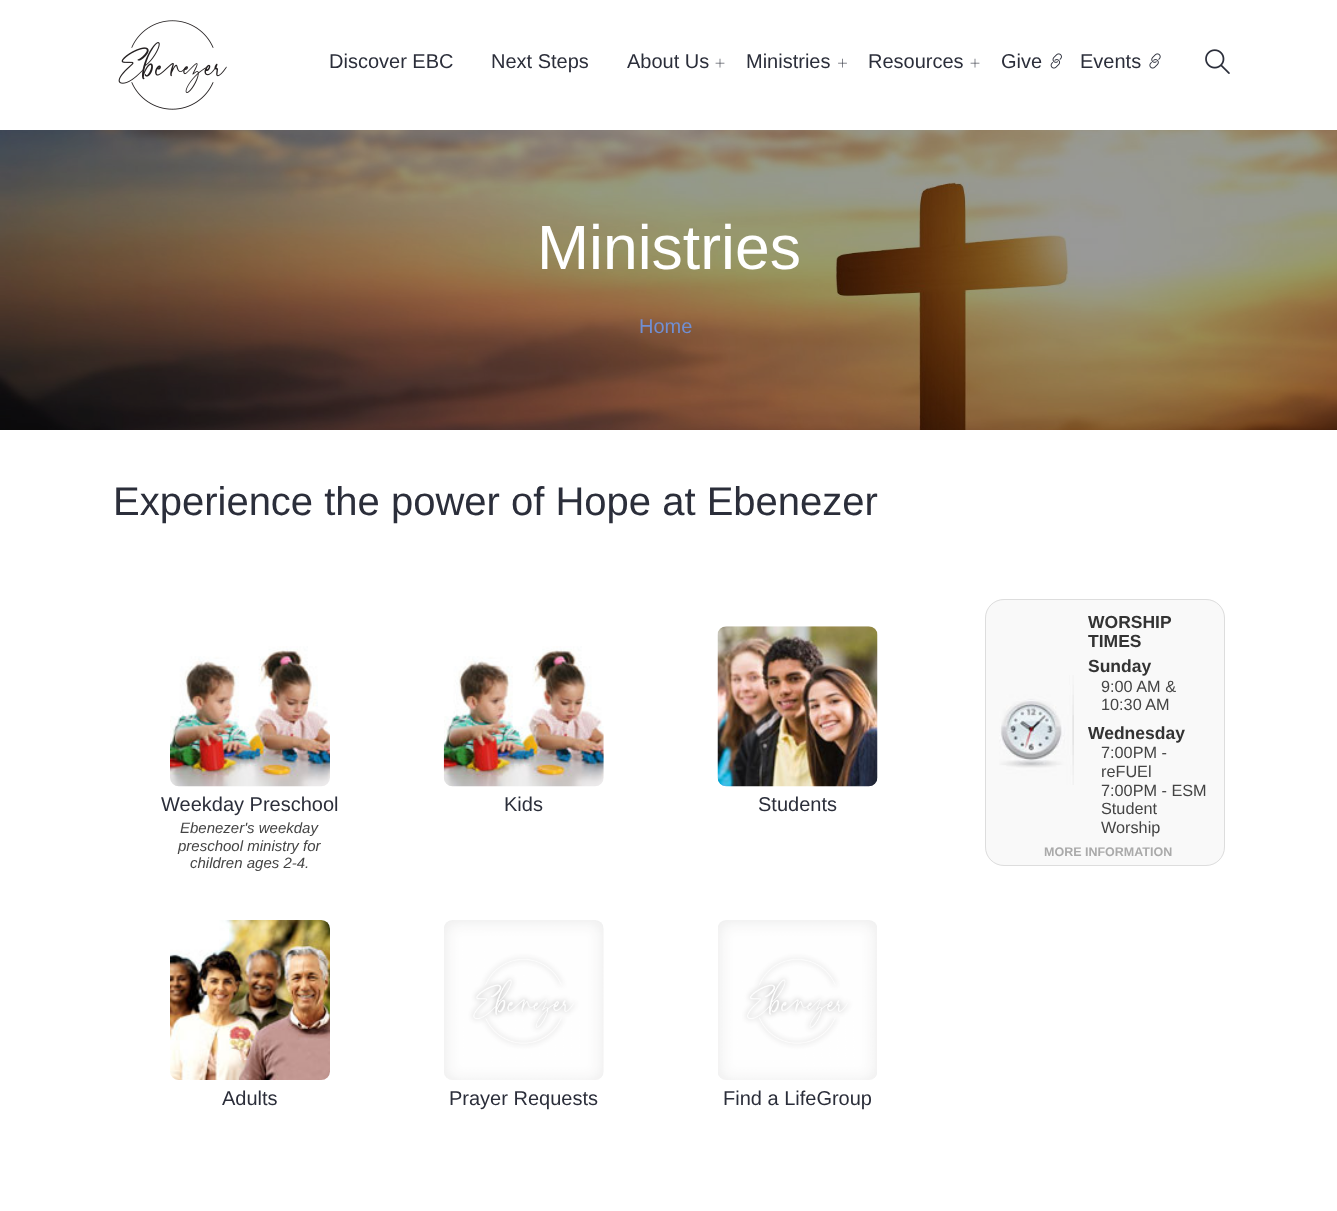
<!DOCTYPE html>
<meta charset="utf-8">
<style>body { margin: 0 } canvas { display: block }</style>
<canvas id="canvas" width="1337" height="1211"></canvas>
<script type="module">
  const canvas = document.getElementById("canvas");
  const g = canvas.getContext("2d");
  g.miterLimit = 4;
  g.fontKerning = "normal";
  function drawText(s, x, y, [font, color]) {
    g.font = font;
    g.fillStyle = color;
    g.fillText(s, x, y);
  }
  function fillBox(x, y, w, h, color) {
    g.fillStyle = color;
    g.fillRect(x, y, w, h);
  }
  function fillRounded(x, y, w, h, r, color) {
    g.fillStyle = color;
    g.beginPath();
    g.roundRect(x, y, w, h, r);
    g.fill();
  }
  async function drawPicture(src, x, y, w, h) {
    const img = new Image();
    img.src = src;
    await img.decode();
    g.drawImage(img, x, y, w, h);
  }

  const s1 = ["20px Liberation Sans", "#2B2E3A"];
  const s2 = ["62.5px Liberation Sans", "#FFFFFF"];
  const s3 = ["20px Liberation Sans", "#718FD2"];
  const s4 = ["40px Liberation Sans", "#2B2E3A"];
  const s5 = ["bold 17.5px Liberation Sans", "#333333"];
  const s6 = ["16.25px Liberation Sans", "#444444"];
  const s7 = ["bold 12.5px Liberation Sans", "#AAAAAA"];
  const s8 = ["italic 15px Liberation Sans", "#444444"];

  fillBox(0, 0, 1337, 1211, "#FFFFFF");
  await drawPicture("pic1.png", 118, 20, 109, 90);
  drawText("Discover EBC", 329, 68, s1);
  drawText("Next Steps", 491, 68, s1);
  drawText("About Us", 627, 68, s1);
  await drawPicture("pic2.png", 715, 58, 10, 10);
  drawText("Ministries", 746, 68, s1);
  await drawPicture("pic3.png", 838, 58, 9, 10);
  drawText("Resources", 868, 68, s1);
  await drawPicture("pic2.png", 970, 58, 10, 10);
  drawText("Give", 1001, 68, s1);
  await drawPicture("pic4.png", 1050, 53, 12, 16);
  drawText("Events", 1080, 68, s1);
  await drawPicture("pic5.png", 1149, 53, 12, 16);
  await drawPicture("pic6.png", 1205, 49, 25, 25);
  await drawPicture("pic7.png", 0, 130, 1337, 300);
  drawText("Ministries", 537, 269, s2);
  drawText("Home", 639, 333, s3);
  drawText("Experience the power of Hope at Ebenezer", 113, 515, s4);
  fillRounded(985, 599, 240, 267, 19, "#F9F9F9");
  await drawPicture("pic8.png", 999, 675, 75, 110);
  g.beginPath();
  g.roundRect(985.5, 599.5, 239, 266, 18.5);
  g.strokeStyle = "#DDDDDD";
  g.stroke();
  drawText("WORSHIP", 1088, 628, s5);
  drawText("TIMES", 1088, 647, s5);
  drawText("Sunday", 1088, 672, s5);
  drawText("9:00 AM &", 1101, 692, s6);
  drawText("10:30 AM", 1101, 710, s6);
  drawText("Wednesday", 1088, 739, s5);
  drawText("7:00PM -", 1101, 758, s6);
  drawText("reFUEl", 1101, 777, s6);
  drawText("7:00PM - ESM", 1101, 796, s6);
  drawText("Student", 1101, 814, s6);
  drawText("Worship", 1101, 833, s6);
  drawText("MORE INFORMATION", 1044, 856, s7);
  await drawPicture("pic9.png", 170, 646, 160, 141);
  drawText("Weekday Preschool", 161, 811, s1);
  drawText("Ebenezer's weekday", 180, 833, s8);
  drawText("preschool ministry for", 178, 851, s8);
  drawText("children ages 2-4.", 190, 868, s8);
  await drawPicture("pic10.png", 443, 646, 161, 141);
  drawText("Kids", 504, 811, s1);
  await drawPicture("pic11.png", 717, 626, 161, 161);
  drawText("Students", 758, 811, s1);
  await drawPicture("pic12.png", 170, 920, 160, 160);
  drawText("Adults", 222, 1105, s1);
  await drawPicture("pic13.png", 444, 920, 160, 160);
  drawText("Prayer Requests", 449, 1105, s1);
  await drawPicture("pic14.png", 718, 920, 159, 160);
  drawText("Find a LifeGroup", 723, 1105, s1);
</script>
